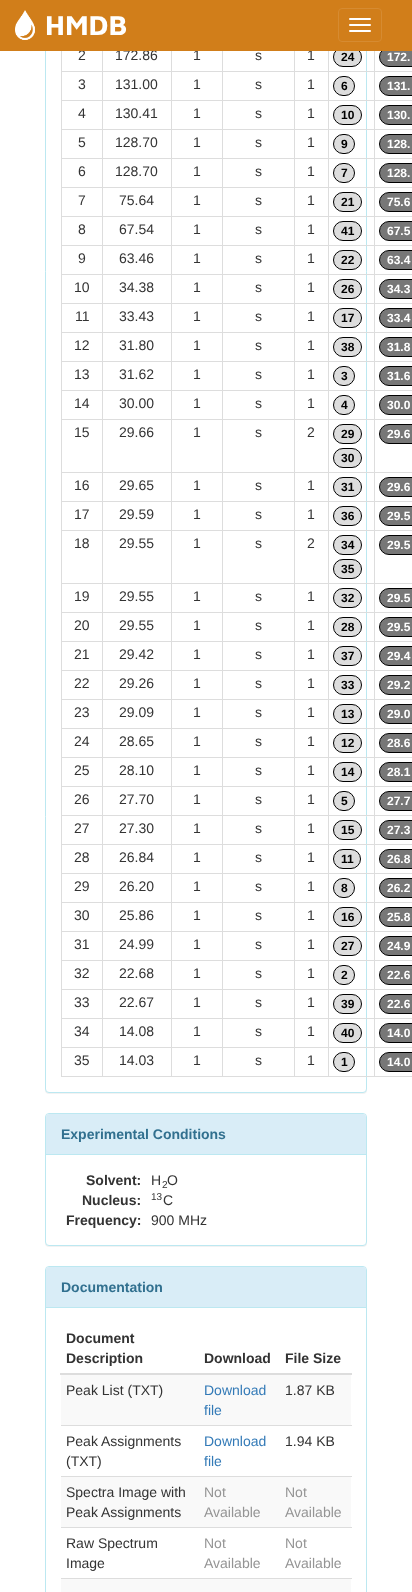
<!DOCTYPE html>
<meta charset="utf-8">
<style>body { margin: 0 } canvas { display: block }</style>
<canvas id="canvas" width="412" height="1592"></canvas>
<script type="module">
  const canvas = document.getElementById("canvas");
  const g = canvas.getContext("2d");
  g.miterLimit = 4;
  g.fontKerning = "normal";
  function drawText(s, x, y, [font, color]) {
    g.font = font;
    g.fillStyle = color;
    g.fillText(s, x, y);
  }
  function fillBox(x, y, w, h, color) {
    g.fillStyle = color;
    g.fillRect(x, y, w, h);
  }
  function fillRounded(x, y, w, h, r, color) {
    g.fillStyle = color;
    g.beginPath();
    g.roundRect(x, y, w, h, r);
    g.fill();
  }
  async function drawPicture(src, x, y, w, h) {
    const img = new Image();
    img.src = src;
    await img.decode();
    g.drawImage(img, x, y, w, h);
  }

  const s1 = ["14px Liberation Sans", "#333333"];
  const s2 = ["bold 28px Maven Pro", "#FFFFFF"];
  const s3 = ["bold 12px Liberation Sans", "#000000"];
  const s4 = ["bold 12px Liberation Sans", "#FFFFFF"];
  const s5 = ["bold 14px Liberation Sans", "#31708F"];
  const s6 = ["bold 14px Liberation Sans", "#333333"];
  const s7 = ["10px Liberation Sans", "#333333"];
  const s8 = ["14px Liberation Sans", "#337AB7"];
  const s9 = ["14px Liberation Sans", "#949494"];

  fillBox(0, 0, 412, 1592, "#FFFFFF");
  g.fillStyle = "rgba(0, 0, 0, 0.05)";
  g.filter = "blur(0.5px)";
  g.beginPath();
  g.roundRect(45, -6, 322, 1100, 4);
  g.fill();
  g.filter = "none";
  g.fillStyle = "#FFFFFF";
  g.beginPath();
  g.roundRect(45.5, -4.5, 321, 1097, 3.5);
  g.fill();
  g.strokeStyle = "#BCE8F1";
  g.stroke();
  drawText("2", 78, 60, s1);
  drawText("172.86", 115, 60, s1);
  drawText("1", 193, 60, s1);
  drawText("1", 307, 60, s1);
  g.fillStyle = "#DDDDDD";
  g.beginPath();
  g.roundRect(333.5, 47.5, 28, 19, 9.5);
  g.fill();
  g.strokeStyle = "#000000";
  g.stroke();
  g.fillStyle = "#777777";
  g.beginPath();
  g.roundRect(379.5, 47.5, 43, 19, 9.5);
  g.fill();
  g.stroke();
  fillBox(0, 0, 412, 51, "#D17E1A");
  await drawPicture("pic1.png", 15, 10, 20, 30);
  drawText("HMDB", 45, 35, s2);
  g.beginPath();
  g.roundRect(338.5, 8.5, 43, 33, 3.5);
  g.strokeStyle = "#D68B31";
  g.stroke();
  fillRounded(349, 18, 22, 2, 1, "#FFFFFF");
  fillRounded(349, 24, 22, 2, 1, "#FFFFFF");
  fillRounded(349, 30, 22, 2, 1, "#FFFFFF");
  fillBox(61, 1076, 351, 1, "#DDDDDD");
  fillBox(61, 51, 1, 1026, "#DDDDDD");
  fillBox(61, 71, 351, 1, "#DDDDDD");
  drawText("s", 255, 60, s1);
  drawText("24", 341, 61, s3);
  drawText("172.", 387, 61, s4);
  fillBox(61, 100, 351, 1, "#DDDDDD");
  drawText("3", 78, 89, s1);
  drawText("131.00", 115, 89, s1);
  drawText("1", 193, 89, s1);
  drawText("s", 255, 89, s1);
  drawText("1", 307, 89, s1);
  g.fillStyle = "#DDDDDD";
  g.beginPath();
  g.roundRect(333.5, 76.5, 21, 19, 9.5);
  g.fill();
  g.strokeStyle = "#000000";
  g.stroke();
  drawText("6", 341, 90, s3);
  g.fillStyle = "#777777";
  g.beginPath();
  g.roundRect(379.5, 76.5, 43, 19, 9.5);
  g.fill();
  g.stroke();
  drawText("131.", 387, 90, s4);
  fillBox(61, 129, 351, 1, "#DDDDDD");
  drawText("4", 78, 118, s1);
  drawText("130.41", 115, 118, s1);
  drawText("1", 193, 118, s1);
  drawText("s", 255, 118, s1);
  drawText("1", 307, 118, s1);
  g.fillStyle = "#DDDDDD";
  g.beginPath();
  g.roundRect(333.5, 105.5, 28, 19, 9.5);
  g.fill();
  g.stroke();
  drawText("10", 341, 119, s3);
  g.fillStyle = "#777777";
  g.beginPath();
  g.roundRect(379.5, 105.5, 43, 19, 9.5);
  g.fill();
  g.stroke();
  drawText("130.", 387, 119, s4);
  fillBox(61, 158, 351, 1, "#DDDDDD");
  drawText("5", 78, 147, s1);
  drawText("128.70", 115, 147, s1);
  drawText("1", 193, 147, s1);
  drawText("s", 255, 147, s1);
  drawText("1", 307, 147, s1);
  g.fillStyle = "#DDDDDD";
  g.beginPath();
  g.roundRect(333.5, 134.5, 21, 19, 9.5);
  g.fill();
  g.stroke();
  drawText("9", 341, 148, s3);
  g.fillStyle = "#777777";
  g.beginPath();
  g.roundRect(379.5, 134.5, 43, 19, 9.5);
  g.fill();
  g.stroke();
  drawText("128.", 387, 148, s4);
  fillBox(61, 187, 351, 1, "#DDDDDD");
  drawText("6", 78, 176, s1);
  drawText("128.70", 115, 176, s1);
  drawText("1", 193, 176, s1);
  drawText("s", 255, 176, s1);
  drawText("1", 307, 176, s1);
  g.fillStyle = "#DDDDDD";
  g.beginPath();
  g.roundRect(333.5, 163.5, 21, 19, 9.5);
  g.fill();
  g.stroke();
  drawText("7", 341, 177, s3);
  g.fillStyle = "#777777";
  g.beginPath();
  g.roundRect(379.5, 163.5, 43, 19, 9.5);
  g.fill();
  g.stroke();
  drawText("128.", 387, 177, s4);
  fillBox(61, 216, 351, 1, "#DDDDDD");
  drawText("7", 78, 205, s1);
  drawText("75.64", 119, 205, s1);
  drawText("1", 193, 205, s1);
  drawText("s", 255, 205, s1);
  drawText("1", 307, 205, s1);
  g.fillStyle = "#DDDDDD";
  g.beginPath();
  g.roundRect(333.5, 192.5, 28, 19, 9.5);
  g.fill();
  g.stroke();
  drawText("21", 341, 206, s3);
  g.fillStyle = "#777777";
  g.beginPath();
  g.roundRect(379.5, 192.5, 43, 19, 9.5);
  g.fill();
  g.stroke();
  drawText("75.6", 387, 206, s4);
  fillBox(61, 245, 351, 1, "#DDDDDD");
  drawText("8", 78, 234, s1);
  drawText("67.54", 119, 234, s1);
  drawText("1", 193, 234, s1);
  drawText("s", 255, 234, s1);
  drawText("1", 307, 234, s1);
  g.fillStyle = "#DDDDDD";
  g.beginPath();
  g.roundRect(333.5, 221.5, 28, 19, 9.5);
  g.fill();
  g.stroke();
  drawText("41", 341, 235, s3);
  g.fillStyle = "#777777";
  g.beginPath();
  g.roundRect(379.5, 221.5, 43, 19, 9.5);
  g.fill();
  g.stroke();
  drawText("67.5", 387, 235, s4);
  fillBox(61, 274, 351, 1, "#DDDDDD");
  drawText("9", 78, 263, s1);
  drawText("63.46", 119, 263, s1);
  drawText("1", 193, 263, s1);
  drawText("s", 255, 263, s1);
  drawText("1", 307, 263, s1);
  g.fillStyle = "#DDDDDD";
  g.beginPath();
  g.roundRect(333.5, 250.5, 28, 19, 9.5);
  g.fill();
  g.stroke();
  drawText("22", 341, 264, s3);
  g.fillStyle = "#777777";
  g.beginPath();
  g.roundRect(379.5, 250.5, 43, 19, 9.5);
  g.fill();
  g.stroke();
  drawText("63.4", 387, 264, s4);
  fillBox(61, 303, 351, 1, "#DDDDDD");
  drawText("10", 74, 292, s1);
  drawText("34.38", 119, 292, s1);
  drawText("1", 193, 292, s1);
  drawText("s", 255, 292, s1);
  drawText("1", 307, 292, s1);
  g.fillStyle = "#DDDDDD";
  g.beginPath();
  g.roundRect(333.5, 279.5, 28, 19, 9.5);
  g.fill();
  g.stroke();
  drawText("26", 341, 293, s3);
  g.fillStyle = "#777777";
  g.beginPath();
  g.roundRect(379.5, 279.5, 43, 19, 9.5);
  g.fill();
  g.stroke();
  drawText("34.3", 387, 293, s4);
  fillBox(61, 332, 351, 1, "#DDDDDD");
  drawText("11", 75, 321, s1);
  drawText("33.43", 119, 321, s1);
  drawText("1", 193, 321, s1);
  drawText("s", 255, 321, s1);
  drawText("1", 307, 321, s1);
  g.fillStyle = "#DDDDDD";
  g.beginPath();
  g.roundRect(333.5, 308.5, 28, 19, 9.5);
  g.fill();
  g.stroke();
  drawText("17", 341, 322, s3);
  g.fillStyle = "#777777";
  g.beginPath();
  g.roundRect(379.5, 308.5, 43, 19, 9.5);
  g.fill();
  g.stroke();
  drawText("33.4", 387, 322, s4);
  fillBox(61, 361, 351, 1, "#DDDDDD");
  drawText("12", 74, 350, s1);
  drawText("31.80", 119, 350, s1);
  drawText("1", 193, 350, s1);
  drawText("s", 255, 350, s1);
  drawText("1", 307, 350, s1);
  g.fillStyle = "#DDDDDD";
  g.beginPath();
  g.roundRect(333.5, 337.5, 28, 19, 9.5);
  g.fill();
  g.stroke();
  drawText("38", 341, 351, s3);
  g.fillStyle = "#777777";
  g.beginPath();
  g.roundRect(379.5, 337.5, 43, 19, 9.5);
  g.fill();
  g.stroke();
  drawText("31.8", 387, 351, s4);
  fillBox(61, 390, 351, 1, "#DDDDDD");
  drawText("13", 74, 379, s1);
  drawText("31.62", 119, 379, s1);
  drawText("1", 193, 379, s1);
  drawText("s", 255, 379, s1);
  drawText("1", 307, 379, s1);
  g.fillStyle = "#DDDDDD";
  g.beginPath();
  g.roundRect(333.5, 366.5, 21, 19, 9.5);
  g.fill();
  g.stroke();
  drawText("3", 341, 380, s3);
  g.fillStyle = "#777777";
  g.beginPath();
  g.roundRect(379.5, 366.5, 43, 19, 9.5);
  g.fill();
  g.stroke();
  drawText("31.6", 387, 380, s4);
  fillBox(61, 419, 351, 1, "#DDDDDD");
  drawText("14", 74, 408, s1);
  drawText("30.00", 119, 408, s1);
  drawText("1", 193, 408, s1);
  drawText("s", 255, 408, s1);
  drawText("1", 307, 408, s1);
  g.fillStyle = "#DDDDDD";
  g.beginPath();
  g.roundRect(333.5, 395.5, 21, 19, 9.5);
  g.fill();
  g.stroke();
  drawText("4", 341, 409, s3);
  g.fillStyle = "#777777";
  g.beginPath();
  g.roundRect(379.5, 395.5, 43, 19, 9.5);
  g.fill();
  g.stroke();
  drawText("30.0", 387, 409, s4);
  fillBox(61, 472, 351, 1, "#DDDDDD");
  drawText("15", 74, 437, s1);
  drawText("29.66", 119, 437, s1);
  drawText("1", 193, 437, s1);
  drawText("s", 255, 437, s1);
  drawText("2", 307, 437, s1);
  g.fillStyle = "#DDDDDD";
  g.beginPath();
  g.roundRect(333.5, 424.5, 28, 19, 9.5);
  g.fill();
  g.stroke();
  drawText("29", 341, 438, s3);
  g.fillStyle = "#DDDDDD";
  g.beginPath();
  g.roundRect(333.5, 448.5, 28, 19, 9.5);
  g.fill();
  g.stroke();
  drawText("30", 341, 462, s3);
  g.fillStyle = "#777777";
  g.beginPath();
  g.roundRect(379.5, 424.5, 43, 19, 9.5);
  g.fill();
  g.stroke();
  drawText("29.6", 387, 438, s4);
  fillBox(61, 501, 351, 1, "#DDDDDD");
  drawText("16", 74, 490, s1);
  drawText("29.65", 119, 490, s1);
  drawText("1", 193, 490, s1);
  drawText("s", 255, 490, s1);
  drawText("1", 307, 490, s1);
  g.fillStyle = "#DDDDDD";
  g.beginPath();
  g.roundRect(333.5, 477.5, 28, 19, 9.5);
  g.fill();
  g.stroke();
  drawText("31", 341, 491, s3);
  g.fillStyle = "#777777";
  g.beginPath();
  g.roundRect(379.5, 477.5, 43, 19, 9.5);
  g.fill();
  g.stroke();
  drawText("29.6", 387, 491, s4);
  fillBox(61, 530, 351, 1, "#DDDDDD");
  drawText("17", 74, 519, s1);
  drawText("29.59", 119, 519, s1);
  drawText("1", 193, 519, s1);
  drawText("s", 255, 519, s1);
  drawText("1", 307, 519, s1);
  g.fillStyle = "#DDDDDD";
  g.beginPath();
  g.roundRect(333.5, 506.5, 28, 19, 9.5);
  g.fill();
  g.stroke();
  drawText("36", 341, 520, s3);
  g.fillStyle = "#777777";
  g.beginPath();
  g.roundRect(379.5, 506.5, 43, 19, 9.5);
  g.fill();
  g.stroke();
  drawText("29.5", 387, 520, s4);
  fillBox(61, 583, 351, 1, "#DDDDDD");
  drawText("18", 74, 548, s1);
  drawText("29.55", 119, 548, s1);
  drawText("1", 193, 548, s1);
  drawText("s", 255, 548, s1);
  drawText("2", 307, 548, s1);
  g.fillStyle = "#DDDDDD";
  g.beginPath();
  g.roundRect(333.5, 535.5, 28, 19, 9.5);
  g.fill();
  g.stroke();
  drawText("34", 341, 549, s3);
  g.fillStyle = "#DDDDDD";
  g.beginPath();
  g.roundRect(333.5, 559.5, 28, 19, 9.5);
  g.fill();
  g.stroke();
  drawText("35", 341, 573, s3);
  g.fillStyle = "#777777";
  g.beginPath();
  g.roundRect(379.5, 535.5, 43, 19, 9.5);
  g.fill();
  g.stroke();
  drawText("29.5", 387, 549, s4);
  fillBox(61, 612, 351, 1, "#DDDDDD");
  drawText("19", 74, 601, s1);
  drawText("29.55", 119, 601, s1);
  drawText("1", 193, 601, s1);
  drawText("s", 255, 601, s1);
  drawText("1", 307, 601, s1);
  g.fillStyle = "#DDDDDD";
  g.beginPath();
  g.roundRect(333.5, 588.5, 28, 19, 9.5);
  g.fill();
  g.stroke();
  drawText("32", 341, 602, s3);
  g.fillStyle = "#777777";
  g.beginPath();
  g.roundRect(379.5, 588.5, 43, 19, 9.5);
  g.fill();
  g.stroke();
  drawText("29.5", 387, 602, s4);
  fillBox(61, 641, 351, 1, "#DDDDDD");
  drawText("20", 74, 630, s1);
  drawText("29.55", 119, 630, s1);
  drawText("1", 193, 630, s1);
  drawText("s", 255, 630, s1);
  drawText("1", 307, 630, s1);
  g.fillStyle = "#DDDDDD";
  g.beginPath();
  g.roundRect(333.5, 617.5, 28, 19, 9.5);
  g.fill();
  g.stroke();
  drawText("28", 341, 631, s3);
  g.fillStyle = "#777777";
  g.beginPath();
  g.roundRect(379.5, 617.5, 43, 19, 9.5);
  g.fill();
  g.stroke();
  drawText("29.5", 387, 631, s4);
  fillBox(61, 670, 351, 1, "#DDDDDD");
  drawText("21", 74, 659, s1);
  drawText("29.42", 119, 659, s1);
  drawText("1", 193, 659, s1);
  drawText("s", 255, 659, s1);
  drawText("1", 307, 659, s1);
  g.fillStyle = "#DDDDDD";
  g.beginPath();
  g.roundRect(333.5, 646.5, 28, 19, 9.5);
  g.fill();
  g.stroke();
  drawText("37", 341, 660, s3);
  g.fillStyle = "#777777";
  g.beginPath();
  g.roundRect(379.5, 646.5, 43, 19, 9.5);
  g.fill();
  g.stroke();
  drawText("29.4", 387, 660, s4);
  fillBox(61, 699, 351, 1, "#DDDDDD");
  drawText("22", 74, 688, s1);
  drawText("29.26", 119, 688, s1);
  drawText("1", 193, 688, s1);
  drawText("s", 255, 688, s1);
  drawText("1", 307, 688, s1);
  g.fillStyle = "#DDDDDD";
  g.beginPath();
  g.roundRect(333.5, 675.5, 28, 19, 9.5);
  g.fill();
  g.stroke();
  drawText("33", 341, 689, s3);
  g.fillStyle = "#777777";
  g.beginPath();
  g.roundRect(379.5, 675.5, 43, 19, 9.5);
  g.fill();
  g.stroke();
  drawText("29.2", 387, 689, s4);
  fillBox(61, 728, 351, 1, "#DDDDDD");
  drawText("23", 74, 717, s1);
  drawText("29.09", 119, 717, s1);
  drawText("1", 193, 717, s1);
  drawText("s", 255, 717, s1);
  drawText("1", 307, 717, s1);
  g.fillStyle = "#DDDDDD";
  g.beginPath();
  g.roundRect(333.5, 704.5, 28, 19, 9.5);
  g.fill();
  g.stroke();
  drawText("13", 341, 718, s3);
  g.fillStyle = "#777777";
  g.beginPath();
  g.roundRect(379.5, 704.5, 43, 19, 9.5);
  g.fill();
  g.stroke();
  drawText("29.0", 387, 718, s4);
  fillBox(61, 757, 351, 1, "#DDDDDD");
  drawText("24", 74, 746, s1);
  drawText("28.65", 119, 746, s1);
  drawText("1", 193, 746, s1);
  drawText("s", 255, 746, s1);
  drawText("1", 307, 746, s1);
  g.fillStyle = "#DDDDDD";
  g.beginPath();
  g.roundRect(333.5, 733.5, 28, 19, 9.5);
  g.fill();
  g.stroke();
  drawText("12", 341, 747, s3);
  g.fillStyle = "#777777";
  g.beginPath();
  g.roundRect(379.5, 733.5, 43, 19, 9.5);
  g.fill();
  g.stroke();
  drawText("28.6", 387, 747, s4);
  fillBox(61, 786, 351, 1, "#DDDDDD");
  drawText("25", 74, 775, s1);
  drawText("28.10", 119, 775, s1);
  drawText("1", 193, 775, s1);
  drawText("s", 255, 775, s1);
  drawText("1", 307, 775, s1);
  g.fillStyle = "#DDDDDD";
  g.beginPath();
  g.roundRect(333.5, 762.5, 28, 19, 9.5);
  g.fill();
  g.stroke();
  drawText("14", 341, 776, s3);
  g.fillStyle = "#777777";
  g.beginPath();
  g.roundRect(379.5, 762.5, 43, 19, 9.5);
  g.fill();
  g.stroke();
  drawText("28.1", 387, 776, s4);
  fillBox(61, 815, 351, 1, "#DDDDDD");
  drawText("26", 74, 804, s1);
  drawText("27.70", 119, 804, s1);
  drawText("1", 193, 804, s1);
  drawText("s", 255, 804, s1);
  drawText("1", 307, 804, s1);
  g.fillStyle = "#DDDDDD";
  g.beginPath();
  g.roundRect(333.5, 791.5, 21, 19, 9.5);
  g.fill();
  g.stroke();
  drawText("5", 341, 805, s3);
  g.fillStyle = "#777777";
  g.beginPath();
  g.roundRect(379.5, 791.5, 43, 19, 9.5);
  g.fill();
  g.stroke();
  drawText("27.7", 387, 805, s4);
  fillBox(61, 844, 351, 1, "#DDDDDD");
  drawText("27", 74, 833, s1);
  drawText("27.30", 119, 833, s1);
  drawText("1", 193, 833, s1);
  drawText("s", 255, 833, s1);
  drawText("1", 307, 833, s1);
  g.fillStyle = "#DDDDDD";
  g.beginPath();
  g.roundRect(333.5, 820.5, 28, 19, 9.5);
  g.fill();
  g.stroke();
  drawText("15", 341, 834, s3);
  g.fillStyle = "#777777";
  g.beginPath();
  g.roundRect(379.5, 820.5, 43, 19, 9.5);
  g.fill();
  g.stroke();
  drawText("27.3", 387, 834, s4);
  fillBox(61, 873, 351, 1, "#DDDDDD");
  drawText("28", 74, 862, s1);
  drawText("26.84", 119, 862, s1);
  drawText("1", 193, 862, s1);
  drawText("s", 255, 862, s1);
  drawText("1", 307, 862, s1);
  g.fillStyle = "#DDDDDD";
  g.beginPath();
  g.roundRect(333.5, 849.5, 27, 19, 9.5);
  g.fill();
  g.stroke();
  drawText("11", 341, 863, s3);
  g.fillStyle = "#777777";
  g.beginPath();
  g.roundRect(379.5, 849.5, 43, 19, 9.5);
  g.fill();
  g.stroke();
  drawText("26.8", 387, 863, s4);
  fillBox(61, 902, 351, 1, "#DDDDDD");
  drawText("29", 74, 891, s1);
  drawText("26.20", 119, 891, s1);
  drawText("1", 193, 891, s1);
  drawText("s", 255, 891, s1);
  drawText("1", 307, 891, s1);
  g.fillStyle = "#DDDDDD";
  g.beginPath();
  g.roundRect(333.5, 878.5, 21, 19, 9.5);
  g.fill();
  g.stroke();
  drawText("8", 341, 892, s3);
  g.fillStyle = "#777777";
  g.beginPath();
  g.roundRect(379.5, 878.5, 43, 19, 9.5);
  g.fill();
  g.stroke();
  drawText("26.2", 387, 892, s4);
  fillBox(61, 931, 351, 1, "#DDDDDD");
  drawText("30", 74, 920, s1);
  drawText("25.86", 119, 920, s1);
  drawText("1", 193, 920, s1);
  drawText("s", 255, 920, s1);
  drawText("1", 307, 920, s1);
  g.fillStyle = "#DDDDDD";
  g.beginPath();
  g.roundRect(333.5, 907.5, 28, 19, 9.5);
  g.fill();
  g.stroke();
  drawText("16", 341, 921, s3);
  g.fillStyle = "#777777";
  g.beginPath();
  g.roundRect(379.5, 907.5, 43, 19, 9.5);
  g.fill();
  g.stroke();
  drawText("25.8", 387, 921, s4);
  fillBox(61, 960, 351, 1, "#DDDDDD");
  drawText("31", 74, 949, s1);
  drawText("24.99", 119, 949, s1);
  drawText("1", 193, 949, s1);
  drawText("s", 255, 949, s1);
  drawText("1", 307, 949, s1);
  g.fillStyle = "#DDDDDD";
  g.beginPath();
  g.roundRect(333.5, 936.5, 28, 19, 9.5);
  g.fill();
  g.stroke();
  drawText("27", 341, 950, s3);
  g.fillStyle = "#777777";
  g.beginPath();
  g.roundRect(379.5, 936.5, 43, 19, 9.5);
  g.fill();
  g.stroke();
  drawText("24.9", 387, 950, s4);
  fillBox(61, 989, 351, 1, "#DDDDDD");
  drawText("32", 74, 978, s1);
  drawText("22.68", 119, 978, s1);
  drawText("1", 193, 978, s1);
  drawText("s", 255, 978, s1);
  drawText("1", 307, 978, s1);
  g.fillStyle = "#DDDDDD";
  g.beginPath();
  g.roundRect(333.5, 965.5, 21, 19, 9.5);
  g.fill();
  g.stroke();
  drawText("2", 341, 979, s3);
  g.fillStyle = "#777777";
  g.beginPath();
  g.roundRect(379.5, 965.5, 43, 19, 9.5);
  g.fill();
  g.stroke();
  drawText("22.6", 387, 979, s4);
  fillBox(61, 1018, 351, 1, "#DDDDDD");
  drawText("33", 74, 1007, s1);
  drawText("22.67", 119, 1007, s1);
  drawText("1", 193, 1007, s1);
  drawText("s", 255, 1007, s1);
  drawText("1", 307, 1007, s1);
  g.fillStyle = "#DDDDDD";
  g.beginPath();
  g.roundRect(333.5, 994.5, 28, 19, 9.5);
  g.fill();
  g.stroke();
  drawText("39", 341, 1008, s3);
  g.fillStyle = "#777777";
  g.beginPath();
  g.roundRect(379.5, 994.5, 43, 19, 9.5);
  g.fill();
  g.stroke();
  drawText("22.6", 387, 1008, s4);
  fillBox(61, 1047, 351, 1, "#DDDDDD");
  drawText("34", 74, 1036, s1);
  drawText("14.08", 119, 1036, s1);
  drawText("1", 193, 1036, s1);
  drawText("s", 255, 1036, s1);
  drawText("1", 307, 1036, s1);
  g.fillStyle = "#DDDDDD";
  g.beginPath();
  g.roundRect(333.5, 1023.5, 28, 19, 9.5);
  g.fill();
  g.stroke();
  drawText("40", 341, 1037, s3);
  g.fillStyle = "#777777";
  g.beginPath();
  g.roundRect(379.5, 1023.5, 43, 19, 9.5);
  g.fill();
  g.stroke();
  drawText("14.0", 387, 1037, s4);
  drawText("35", 74, 1065, s1);
  fillBox(102, 51, 1, 1026, "#DDDDDD");
  drawText("14.03", 119, 1065, s1);
  fillBox(171, 51, 1, 1026, "#DDDDDD");
  drawText("1", 193, 1065, s1);
  fillBox(222, 51, 1, 1026, "#DDDDDD");
  drawText("s", 255, 1065, s1);
  fillBox(294, 51, 1, 1026, "#DDDDDD");
  drawText("1", 307, 1065, s1);
  fillBox(328, 51, 1, 1026, "#DDDDDD");
  g.beginPath();
  g.roundRect(333.5, 1052.5, 21, 19, 9.5);
  g.fill();
  g.stroke();
  drawText("1", 341, 1066, s3);
  fillBox(374, 51, 1, 1026, "#DDDDDD");
  g.fillStyle = "#777777";
  g.beginPath();
  g.roundRect(379.5, 1052.5, 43, 19, 9.5);
  g.fill();
  g.stroke();
  drawText("14.0", 387, 1066, s4);
  g.fillStyle = "rgba(0, 0, 0, 0.05)";
  g.filter = "blur(0.5px)";
  g.beginPath();
  g.roundRect(45, 1114, 322, 133, 4);
  g.fill();
  g.filter = "none";
  g.fillStyle = "#FFFFFF";
  g.beginPath();
  g.roundRect(45.5, 1113.5, 321, 132, 3.5);
  g.fill();
  g.strokeStyle = "#BCE8F1";
  g.stroke();
  g.fillStyle = "#D9EDF7";
  g.beginPath();
  g.roundRect(46, 1114, 320, 41, [3, 3, 0, 0]);
  g.fill();
  fillBox(46, 1154, 320, 1, "#BCE8F1");
  drawText("Experimental Conditions", 61, 1139, s5);
  drawText("Solvent:", 86, 1185, s6);
  drawText("H", 151, 1185, s1);
  drawText("2", 162, 1188, s7);
  drawText("O", 167, 1185, s1);
  drawText("Nucleus:", 82, 1205, s6);
  drawText("13", 151, 1200, s7);
  drawText("C", 163, 1205, s1);
  drawText("Frequency:", 66, 1225, s6);
  drawText("900 MHz", 151, 1225, s1);
  g.beginPath();
  g.roundRect(45.5, 1266.5, 321, 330, 3.5);
  g.stroke();
  g.fillStyle = "#D9EDF7";
  g.beginPath();
  g.roundRect(46, 1267, 320, 41, [3, 3, 0, 0]);
  g.fill();
  fillBox(46, 1307, 320, 1, "#BCE8F1");
  drawText("Documentation", 61, 1292, s5);
  drawText("Document", 66, 1343, s6);
  drawText("Description", 66, 1363, s6);
  drawText("Download", 204, 1363, s6);
  fillBox(60, 1373, 292, 2, "#DDDDDD");
  drawText("File Size", 285, 1363, s6);
  fillBox(61, 1375, 290, 50, "#F9F9F9");
  drawText("Peak List (TXT)", 66, 1395, s1);
  drawText("Download", 204, 1395, s8);
  drawText("file", 204, 1415, s8);
  drawText("1.87 KB", 285, 1395, s1);
  drawText("Peak Assignments", 66, 1446, s1);
  drawText("(TXT)", 66, 1466, s1);
  drawText("Download", 204, 1446, s8);
  drawText("file", 204, 1466, s8);
  fillBox(61, 1425, 291, 1, "#DDDDDD");
  drawText("1.94 KB", 285, 1446, s1);
  fillBox(61, 1477, 290, 50, "#F9F9F9");
  drawText("Spectra Image with", 66, 1497, s1);
  drawText("Peak Assignments", 66, 1517, s1);
  drawText("Not", 204, 1497, s9);
  drawText("Available", 204, 1517, s9);
  fillBox(61, 1476, 291, 1, "#DDDDDD");
  drawText("Not", 285, 1497, s9);
  drawText("Available", 285, 1517, s9);
  drawText("Raw Spectrum", 66, 1548, s1);
  drawText("Image", 66, 1568, s1);
  drawText("Not", 204, 1548, s9);
  drawText("Available", 204, 1568, s9);
  fillBox(61, 1527, 291, 1, "#DDDDDD");
  drawText("Not", 285, 1548, s9);
  drawText("Available", 285, 1568, s9);
  fillBox(61, 1579, 290, 13, "#F9F9F9");
  fillBox(61, 1578, 291, 1, "#DDDDDD");
</script>
